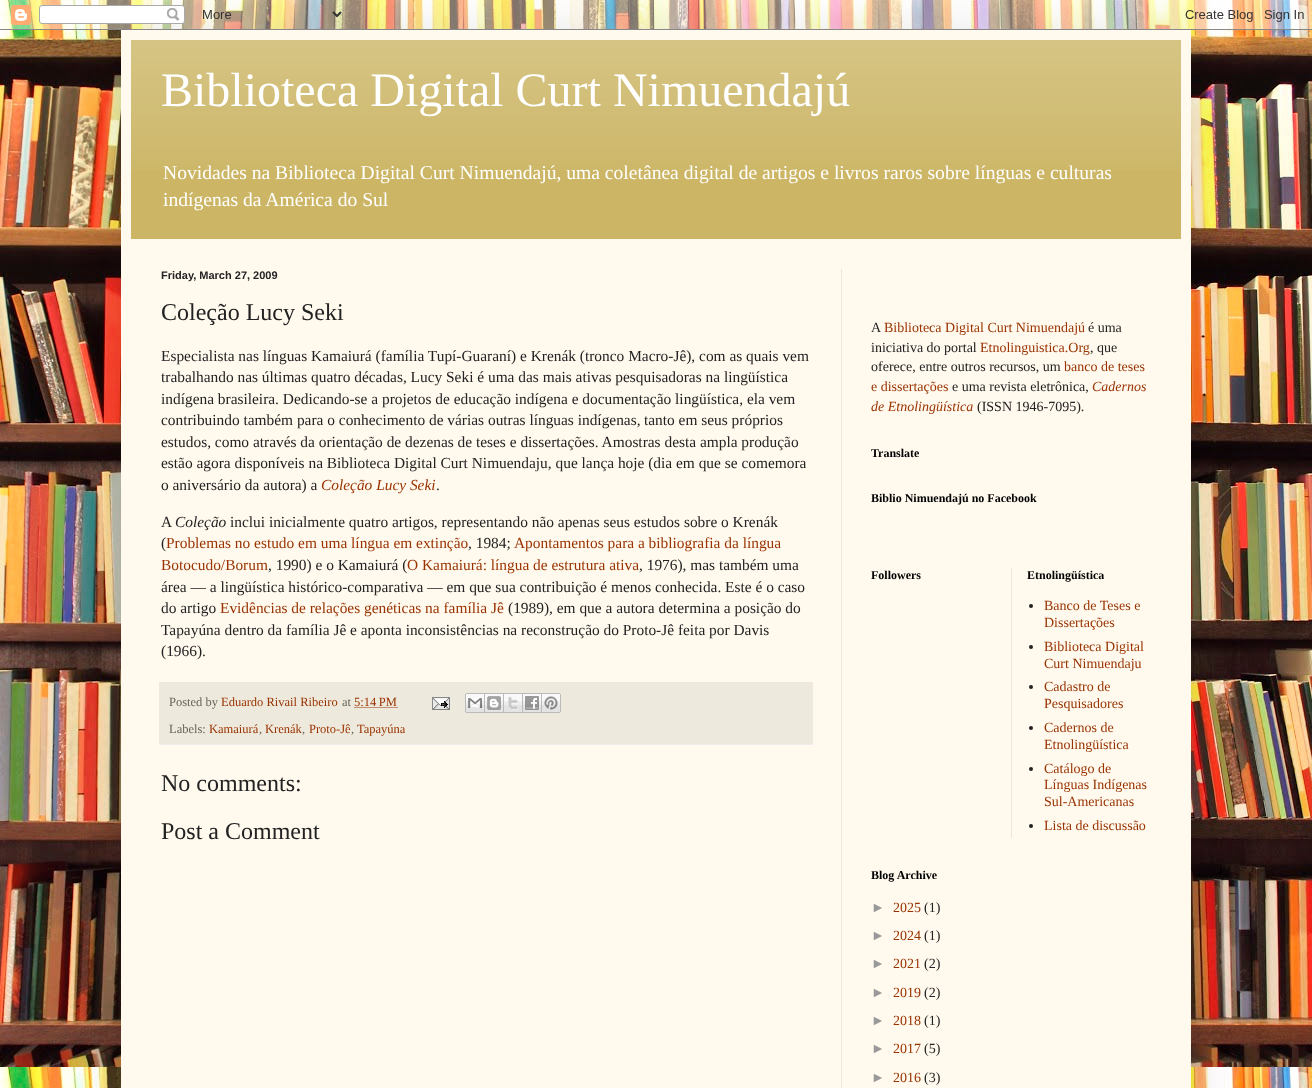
<!DOCTYPE html>
<meta charset="utf-8">
<style>body { margin: 0 } canvas { display: block }</style>
<canvas id="canvas" width="1312" height="1088"></canvas>
<script type="module">
  const canvas = document.getElementById("canvas");
  const g = canvas.getContext("2d");
  g.miterLimit = 4;
  g.fontKerning = "normal";
  function drawText(s, x, y, [font, color]) {
    g.font = font;
    g.fillStyle = color;
    g.fillText(s, x, y);
  }
  function fillBox(x, y, w, h, color) {
    g.fillStyle = color;
    g.fillRect(x, y, w, h);
  }
  async function drawPicture(src, x, y, w, h) {
    const img = new Image();
    img.src = src;
    await img.decode();
    g.drawImage(img, x, y, w, h);
  }

  const s1 = ["48px Liberation Serif", "#FFFFFF"];
  const s2 = ["19.6px Liberation Serif", "#FFFFFF"];
  const s3 = ["bold 11px Liberation Sans", "#222222"];
  const s4 = ["24px Liberation Serif", "#222222"];
  const s5 = ["15.4px Liberation Serif", "#222222"];
  const s6 = ["italic 15.4px Liberation Serif", "#993300"];
  const s7 = ["italic 15.4px Liberation Serif", "#222222"];
  const s8 = ["15.4px Liberation Serif", "#993300"];
  const s9 = ["12.5px Liberation Serif", "#666555"];
  const s10 = ["12.5px Liberation Serif", "#993300"];
  const s11 = ["14px Liberation Serif", "#222222"];
  const s12 = ["14px Liberation Serif", "#993300"];
  const s13 = ["italic 14px Liberation Serif", "#993300"];
  const s14 = ["bold 12px Liberation Serif", "#000000"];
  const s15 = ["14px Liberation Sans", "#999999"];

  fillBox(0, 0, 1312, 1088, "#FFFFFF");
  await drawPicture("pic1.png", 0, 0, 1312, 1088);
  g.fillStyle = "rgba(0, 0, 0, 0.15)";
  g.filter = "blur(20px)";
  g.beginPath();
  g.rect(121, 30, 1070, 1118);
  g.fill();
  g.filter = "none";
  await drawPicture("pic2.png", 0, 0, 1312, 30);
  fillBox(121, 30, 1070, 1058, "#FFF9EE");
  fillBox(131, 40, 1050, 199, "#CCB666");
  await drawPicture("pic3.png", 131, 40, 1050, 130);
  drawText("Biblioteca Digital Curt Nimuendajú", 161, 106, s1);
  drawText("Novidades na Biblioteca Digital Curt Nimuendajú, uma coletânea digital de artigos e livros raros sobre línguas e culturas", 163, 179, s2);
  drawText("indígenas da América do Sul", 163, 206, s2);
  fillBox(841, 269, 1, 819, "#EEE5DD");
  drawText("Friday, March 27, 2009", 161, 279, s3);
  drawText("Coleção Lucy Seki", 161, 320, s4);
  drawText("Especialista nas línguas Kamaiurá (família Tupí-Guaraní) e Krenák (tronco Macro-Jê), com as quais vem", 161, 361, s5);
  drawText("trabalhando nas últimas quatro décadas, Lucy Seki é uma das mais ativas pesquisadoras na lingüística", 161, 382, s5);
  drawText("indígena brasileira. Dedicando-se a projetos de educação indígena e documentação lingüística, ela vem", 161, 404, s5);
  drawText("contribuindo também para o conhecimento de várias outras línguas indígenas,", 161, 425, s5);
  drawText("tanto em seus próprios", 644, 425, s5);
  drawText("estudos, como através da orientação de dezenas de teses e dissertações. Amostras desta ampla produção", 161, 447, s5);
  drawText("estão agora disponíveis na Biblioteca Digital Curt Nimuendaju, que lança hoje (dia em que se comemora", 161, 468, s5);
  drawText("o aniversário da autora) a", 161, 490, s5);
  drawText("Coleção Lucy Seki", 321, 490, s6);
  drawText(".", 436, 490, s5);
  drawText("A", 161, 527, s5);
  drawText("Coleção", 175, 527, s7);
  drawText("inclui inicialmente quatro artigos, representando não apenas seus estudos sobre o Krenák", 230, 527, s5);
  drawText("(", 161, 548, s5);
  drawText("Problemas no estudo em uma língua em extinção", 166, 548, s8);
  drawText(", 1984;", 468, 548, s5);
  drawText("Apontamentos para a bibliografia da língua", 514, 548, s8);
  drawText("Botocudo/Borum", 161, 570, s8);
  drawText(", 1990) e o Kamaiurá (", 268, 570, s5);
  drawText("O Kamaiurá: língua de estrutura ativa", 407, 570, s8);
  drawText(", 1976), mas também uma", 639, 570, s5);
  drawText("área — a lingüística histórico-comparativa — em que sua contribuição é menos conhecida. Este é o caso", 161, 592, s5);
  drawText("do artigo", 161, 613, s5);
  drawText("Evidências de relações genéticas na família Jê", 220, 613, s8);
  drawText("(1989), em que a autora determina a posição do", 508, 613, s5);
  drawText("Tapayúna dentro da família Jê e aponta inconsistências na reconstrução do Proto-Jê feita por Davis", 161, 635, s5);
  drawText("(1966).", 161, 656, s5);
  fillBox(159, 682, 654, 62, "#EEE9DD");
  fillBox(159, 744, 654, 1, "#EEEEEE");
  drawText("Posted by", 169, 706, s9);
  drawText("Eduardo Rivail Ribeiro", 221, 706, s10);
  drawText("at", 342, 706, s9);
  drawText("5:14 PM", 354, 706, s10);
  g.beginPath();
  g.moveTo(354.5, 707.5);
  g.lineTo(397.5, 707.5);
  g.strokeStyle = "#993300";
  g.setLineDash([1, 1]);
  g.stroke();
  await drawPicture("pic4.png", 432, 697, 18, 13);
  await drawPicture("pic5.png", 465, 693, 20, 20);
  await drawPicture("pic6.png", 485, 693, 19, 20);
  await drawPicture("pic7.png", 504, 693, 19, 20);
  await drawPicture("pic8.png", 523, 693, 19, 20);
  await drawPicture("pic9.png", 542, 693, 19, 20);
  drawText("Labels:", 169, 733, s9);
  drawText("Kamaiurá", 209, 733, s10);
  drawText(",", 259, 733, s9);
  drawText("Krenák", 265, 733, s10);
  drawText(",", 302, 733, s9);
  drawText("Proto-Jê", 309, 733, s10);
  drawText(",", 351, 733, s9);
  drawText("Tapayúna", 357, 733, s10);
  drawText("No comments:", 161, 791, s4);
  drawText("Post a Comment", 161, 839, s4);
  drawText("A", 871, 332, s11);
  drawText("Biblioteca Digital Curt Nimuendajú", 884, 332, s12);
  drawText("é uma", 1088, 332, s11);
  drawText("iniciativa do portal", 871, 352, s11);
  drawText("Etnolinguistica.Org", 980, 352, s12);
  drawText(", que", 1090, 352, s11);
  drawText("oferece, entre outros recursos, um", 871, 371, s11);
  drawText("banco de teses", 1064, 371, s12);
  drawText("e dissertações", 871, 391, s12);
  drawText("e uma revista eletrônica,", 952, 391, s11);
  drawText("Cadernos", 1092, 391, s13);
  drawText("de Etnolingüística", 871, 411, s13);
  drawText("(ISSN 1946-7095).", 977, 411, s11);
  drawText("Translate", 871, 457, s14);
  drawText("Biblio Nimuendajú no Facebook", 871, 502, s14);
  drawText("Followers", 871, 579, s14);
  fillBox(1011, 568, 1, 270, "#EEE5DD");
  drawText("Etnolingüística", 1027, 579, s14);
  g.fillStyle = "#222222";
  g.beginPath();
  g.arc(1031, 606, 2, 0, Math.PI * 2);
  g.fill();
  drawText("Banco de Teses e", 1044, 610, s12);
  drawText("Dissertações", 1044, 627, s12);
  g.fillStyle = "#222222";
  g.beginPath();
  g.arc(1031, 647, 2, 0, Math.PI * 2);
  g.fill();
  drawText("Biblioteca Digital", 1044, 651, s12);
  drawText("Curt Nimuendaju", 1044, 668, s12);
  g.fillStyle = "#222222";
  g.beginPath();
  g.arc(1031, 687, 2, 0, Math.PI * 2);
  g.fill();
  drawText("Cadastro de", 1044, 691, s12);
  drawText("Pesquisadores", 1044, 708, s12);
  g.fillStyle = "#222222";
  g.beginPath();
  g.arc(1031, 728, 2, 0, Math.PI * 2);
  g.fill();
  drawText("Cadernos de", 1044, 732, s12);
  drawText("Etnolingüística", 1044, 749, s12);
  g.fillStyle = "#222222";
  g.beginPath();
  g.arc(1031, 769, 2, 0, Math.PI * 2);
  g.fill();
  drawText("Catálogo de", 1044, 773, s12);
  drawText("Línguas Indígenas", 1044, 789, s12);
  drawText("Sul-Americanas", 1044, 806, s12);
  g.fillStyle = "#222222";
  g.beginPath();
  g.arc(1031, 826, 2, 0, Math.PI * 2);
  g.fill();
  drawText("Lista de discussão", 1044, 830, s12);
  drawText("Blog Archive", 871, 879, s14);
  drawText("►", 871, 912, s15);
  drawText("2025", 893, 912, s12);
  drawText("(1)", 924, 912, s11);
  drawText("►", 871, 940, s15);
  drawText("2024", 893, 940, s12);
  drawText("(1)", 924, 940, s11);
  drawText("►", 871, 968, s15);
  drawText("2021", 893, 968, s12);
  drawText("(2)", 924, 968, s11);
  drawText("►", 871, 997, s15);
  drawText("2019", 893, 997, s12);
  drawText("(2)", 924, 997, s11);
  drawText("►", 871, 1025, s15);
  drawText("2018", 893, 1025, s12);
  drawText("(1)", 924, 1025, s11);
  drawText("►", 871, 1053, s15);
  drawText("2017", 893, 1053, s12);
  drawText("(5)", 924, 1053, s11);
  drawText("►", 871, 1082, s15);
  drawText("2016", 893, 1082, s12);
  drawText("(3)", 924, 1082, s11);
</script>
